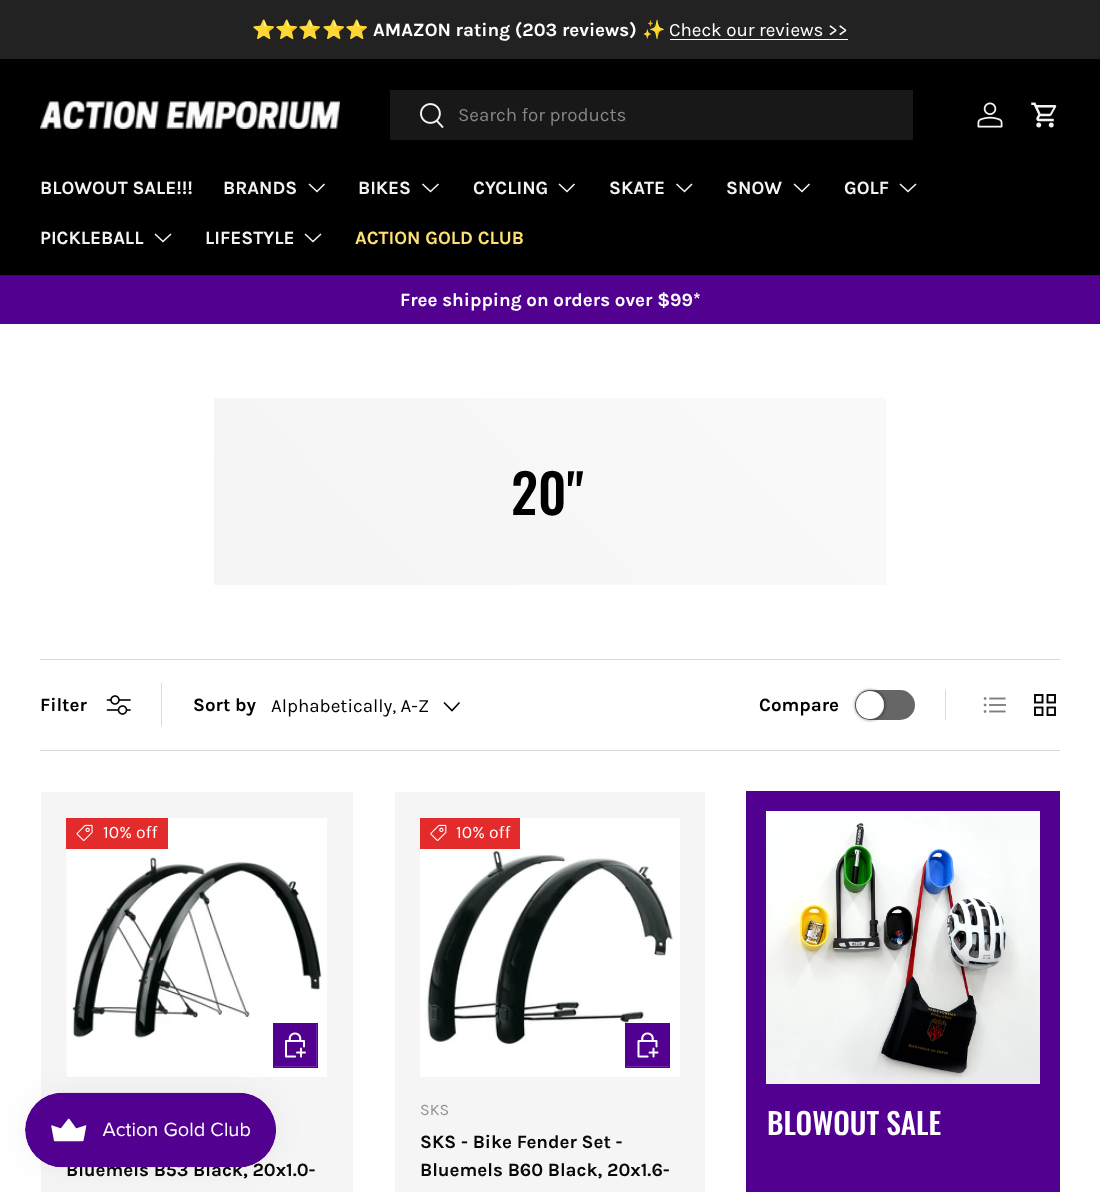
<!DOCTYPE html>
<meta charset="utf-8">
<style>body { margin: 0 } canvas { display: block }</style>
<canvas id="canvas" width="1100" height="1192"></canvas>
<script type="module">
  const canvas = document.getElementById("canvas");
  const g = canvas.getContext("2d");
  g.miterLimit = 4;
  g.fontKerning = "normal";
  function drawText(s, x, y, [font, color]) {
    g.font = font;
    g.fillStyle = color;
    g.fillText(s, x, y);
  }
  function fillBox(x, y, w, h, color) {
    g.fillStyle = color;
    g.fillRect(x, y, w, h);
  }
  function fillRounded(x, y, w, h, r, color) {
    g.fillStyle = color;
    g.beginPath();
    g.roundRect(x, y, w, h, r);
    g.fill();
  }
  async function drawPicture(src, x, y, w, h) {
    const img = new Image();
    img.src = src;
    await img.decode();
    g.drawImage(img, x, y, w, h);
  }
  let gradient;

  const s1 = ["18.75px Noto Color Emoji", "#FFFFFF"];
  const s2 = ["bold 18.75px Karla", "#FFFFFF"];
  const s3 = ["18.75px Karla", "#FFFFFF"];
  const s4 = ["18.75px Karla", "#868686"];
  const s5 = ["bold 18.75px Karla", "#F3F3F3"];
  const s6 = ["bold 18.75px Karla", "#FFE070"];
  const s7 = ["500 54px Oswald", "#000000"];
  const s8 = ["bold 18.75px Karla", "#000000"];
  const s9 = ["18.75px Karla", "#000000"];
  const s10 = ["17.5px Karla", "#FFFFFF"];
  const s11 = ["bold 18.75px Karla", "#070707"];
  const s12 = ["16px Karla", "#919191"];
  const s13 = ["500 29.5px Oswald", "#FFFFFF"];

  fillBox(0, 0, 1100, 1192, "#FFFFFF");
  fillBox(0, 0, 1100, 59, "#222222");
  drawText("⭐⭐⭐⭐⭐", 252, 36, s1);
  drawText("AMAZON rating (203 reviews)", 373, 36, s2);
  drawText("✨", 642, 36, s1);
  drawText("Check our reviews >>", 669, 36, s3);
  fillBox(670, 39, 178, 1, "#FFFFFF");
  fillBox(0, 59, 1100, 216, "#000000");
  fillBox(0, 275, 1100, 1, "#242424");
  await drawPicture("pic1.png", 40, 101, 300, 28);
  fillBox(390, 90, 523, 50, "#181818");
  await drawPicture("pic2.png", 420, 103, 24, 26);
  drawText("Search for products", 458, 121, s4);
  await drawPicture("pic3.png", 977, 102, 26, 26);
  await drawPicture("pic4.png", 1031, 102, 26, 26);
  drawText("BLOWOUT SALE!!!", 40, 194, s5);
  drawText("BRANDS", 223, 194, s5);
  g.beginPath();
  g.moveTo(324.5, 184);
  g.lineTo(317, 191.5);
  g.lineTo(309, 184);
  g.strokeStyle = "#F3F3F3";
  g.lineWidth = 1.6;
  g.stroke();
  drawText("BIKES", 358, 194, s5);
  g.beginPath();
  g.moveTo(438.5, 184);
  g.lineTo(430.5, 191.5);
  g.lineTo(422.5, 184);
  g.stroke();
  drawText("CYCLING", 473, 194, s5);
  g.beginPath();
  g.moveTo(574.5, 184);
  g.lineTo(567, 191.5);
  g.lineTo(559, 184);
  g.stroke();
  drawText("SKATE", 609, 194, s5);
  g.beginPath();
  g.moveTo(692, 184);
  g.lineTo(684.5, 191.5);
  g.lineTo(676.5, 184);
  g.stroke();
  drawText("SNOW", 726, 194, s5);
  g.beginPath();
  g.moveTo(809.5, 184);
  g.lineTo(802, 191.5);
  g.lineTo(794, 184);
  g.stroke();
  drawText("GOLF", 844, 194, s5);
  g.beginPath();
  g.moveTo(916, 184);
  g.lineTo(908, 191.5);
  g.lineTo(900, 184);
  g.stroke();
  drawText("PICKLEBALL", 40, 244, s5);
  g.beginPath();
  g.moveTo(171, 234);
  g.lineTo(163, 241.5);
  g.lineTo(155, 234);
  g.stroke();
  drawText("LIFESTYLE", 205, 244, s5);
  g.beginPath();
  g.moveTo(321, 234);
  g.lineTo(313, 241.5);
  g.lineTo(305, 234);
  g.stroke();
  drawText("ACTION GOLD CLUB", 355, 244, s6);
  fillBox(0, 276, 1100, 48, "#520090");
  drawText("Free shipping on orders over $99*", 400, 306, s2);
  gradient = g.createLinearGradient(329, 705, 771, 278);
  gradient.addColorStop(0.13, "#F5F5F5");
  gradient.addColorStop(0.86, "#F9F9F9");
  g.fillStyle = gradient;
  g.fillRect(214, 398, 672, 187);
  drawText("20\"", 511, 515, s7);
  fillBox(40, 659, 1020, 1, "#D9D9D9");
  fillBox(40, 750, 1020, 1, "#D9D9D9");
  drawText("Filter", 40, 711, s8);
  await drawPicture("pic5.png", 106, 695, 25, 20);
  fillBox(161, 683, 1, 43, "#D9D9D9");
  drawText("Sort by", 193, 711, s8);
  drawText("Alphabetically, A-Z", 271, 712, s9);
  g.beginPath();
  g.moveTo(459.5, 702.5);
  g.lineTo(452, 710.5);
  g.lineTo(444, 702.5);
  g.strokeStyle = "#000000";
  g.stroke();
  fillRounded(855, 690, 60, 30, 15, "#666666");
  g.fillStyle = "rgba(0, 0, 0, 0.25)";
  g.filter = "blur(1px)";
  g.beginPath();
  g.roundRect(854, 689, 32, 32, 16);
  g.fill();
  g.filter = "none";
  g.fillStyle = "#FFFFFF";
  g.beginPath();
  g.arc(870, 705, 14, 0, Math.PI * 2);
  g.fill();
  drawText("Compare", 759, 711, s8);
  fillBox(945, 690, 1, 30, "#D9D9D9");
  await drawPicture("pic6.png", 983, 697, 23, 16);
  await drawPicture("pic7.png", 1034, 694, 22, 22);
  fillBox(41, 792, 312, 400, "#F5F5F5");
  await drawPicture("pic8.png", 66, 818, 261, 259);
  fillBox(66, 818, 102, 31, "#E32B2B");
  await drawPicture("pic9.png", 76, 824, 17, 17);
  drawText("10% off", 103, 838, s10);
  fillBox(274, 1024, 43, 43, "#7429AD");
  gradient = g.createLinearGradient(187, 1029, 318, 1061);
  gradient.addColorStop(0.6, "#7429AD");
  gradient.addColorStop(0.6, "#520090");
  gradient.addColorStop(1, "#520090");
  g.fillStyle = gradient;
  g.fillRect(274, 1024, 42, 42);
  g.strokeStyle = "#520090";
  g.lineWidth = 1;
  g.strokeRect(273.5, 1023.5, 44, 44);
  await drawPicture("pic10.png", 285, 1032, 21, 26);
  drawText("Bluemels B53 Black, 20x1.0-", 66, 1176, s11);
  fillBox(395, 792, 310, 400, "#F5F5F5");
  await drawPicture("pic11.png", 420, 818, 260, 259);
  fillBox(420, 818, 100, 31, "#E32B2B");
  await drawPicture("pic12.png", 430, 824, 17, 17);
  drawText("10% off", 456, 838, s10);
  fillBox(626, 1066, 43, 1, "#7429AD");
  gradient = g.createLinearGradient(540, 1029, 670, 1061);
  gradient.addColorStop(0.6, "#7429AD");
  gradient.addColorStop(0.6, "#520090");
  gradient.addColorStop(1, "#520090");
  g.fillStyle = gradient;
  g.fillRect(626, 1024, 43, 42);
  g.strokeRect(625.5, 1023.5, 44, 44);
  await drawPicture("pic13.png", 637, 1032, 22, 26);
  drawText("SKS", 420, 1115, s12);
  drawText("SKS - Bike Fender Set -", 420, 1148, s11);
  drawText("Bluemels B60 Black, 20x1.6-", 420, 1176, s11);
  fillBox(746, 791, 314, 401, "#520090");
  await drawPicture("pic14.png", 766, 811, 274, 273);
  drawText("BLOWOUT SALE", 767, 1135, s13);
  g.fillStyle = "rgba(0, 0, 0, 0.05)";
  g.filter = "blur(15.5px)";
  g.beginPath();
  g.roundRect(25, 1093, 251, 75, 37.5);
  g.fill();
  g.filter = "none";
  await drawPicture("pic15.png", 25, 1092, 251, 76);
</script>
